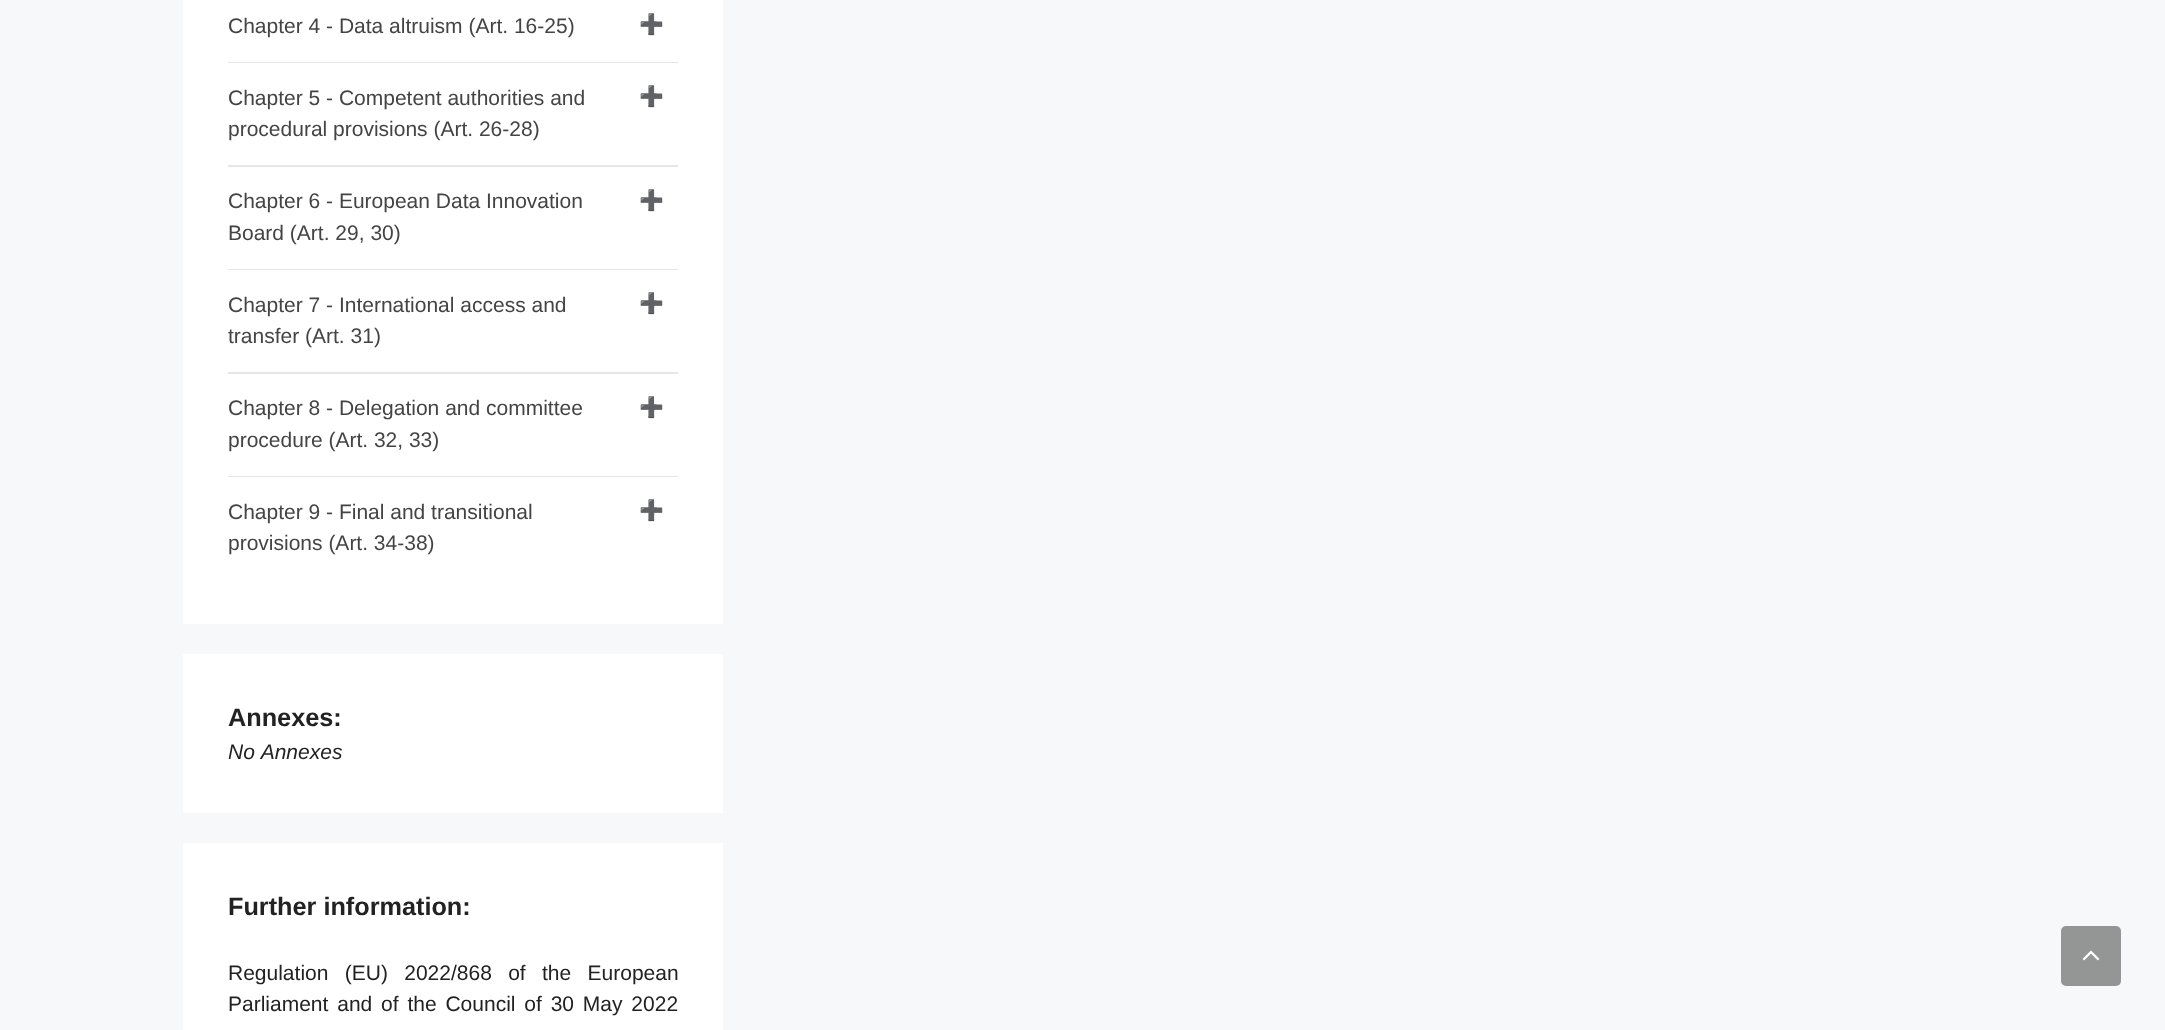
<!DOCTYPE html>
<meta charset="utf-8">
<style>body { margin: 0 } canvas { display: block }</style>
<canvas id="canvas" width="2165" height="1030"></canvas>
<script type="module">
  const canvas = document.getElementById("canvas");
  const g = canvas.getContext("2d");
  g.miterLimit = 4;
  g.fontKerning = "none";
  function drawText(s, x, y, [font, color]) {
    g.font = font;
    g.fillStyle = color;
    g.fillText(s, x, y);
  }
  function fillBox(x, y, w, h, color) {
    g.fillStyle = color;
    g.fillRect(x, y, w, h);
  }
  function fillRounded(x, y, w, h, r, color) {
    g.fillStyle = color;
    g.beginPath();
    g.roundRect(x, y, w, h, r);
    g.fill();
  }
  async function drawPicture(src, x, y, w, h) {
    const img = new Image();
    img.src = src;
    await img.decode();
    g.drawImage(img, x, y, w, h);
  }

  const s1 = ["21px Liberation Sans", "#444444"];
  const s2 = ["20px Noto Color Emoji", "#444444"];
  const s3 = ["bold 25.25px Liberation Sans", "#222222"];
  const s4 = ["italic 21px Liberation Sans", "#222222"];
  const s5 = ["21px Liberation Sans", "#222222"];

  fillBox(0, 0, 2165, 1030, "#F7F8F9");
  fillBox(183, 0, 540, 624, "#FFFFFF");
  drawText("Chapter 4 - Data altruism (Art. 16-25)", 228, 33, s1);
  drawText("➕", 639, 31, s2);
  fillBox(228, 62, 450, 1, "#E6E6E6");
  drawText("Chapter 5 - Competent authorities and", 228, 105, s1);
  drawText("➕", 639, 103, s2);
  drawText("procedural provisions (Art. 26-28)", 228, 136, s1);
  fillBox(228, 165, 450, 2, "#E6E6E6");
  drawText("Chapter 6 - European Data Innovation", 228, 208, s1);
  drawText("➕", 639, 207, s2);
  drawText("Board (Art. 29, 30)", 228, 240, s1);
  fillBox(228, 269, 450, 1, "#E6E6E6");
  drawText("Chapter 7 - International access and", 228, 312, s1);
  drawText("➕", 639, 310, s2);
  drawText("transfer (Art. 31)", 228, 343, s1);
  fillBox(228, 372, 450, 2, "#E6E6E6");
  drawText("Chapter 8 - Delegation and committee", 228, 415, s1);
  drawText("➕", 639, 414, s2);
  drawText("procedure (Art. 32, 33)", 228, 447, s1);
  fillBox(228, 476, 450, 1, "#E6E6E6");
  drawText("Chapter 9 - Final and transitional", 228, 519, s1);
  drawText("➕", 639, 517, s2);
  drawText("provisions (Art. 34-38)", 228, 550, s1);
  fillBox(183, 654, 540, 159, "#FFFFFF");
  drawText("Annexes:", 228, 726, s3);
  drawText("No Annexes", 228, 759, s4);
  fillBox(183, 843, 540, 187, "#FFFFFF");
  drawText("Further information:", 228, 915, s3);
  g.wordSpacing = "10.5px";
  drawText("Regulation (EU) 2022/868 of the European", 228, 980, s5);
  g.wordSpacing = "3px";
  drawText("Parliament and of the Council of 30 May 2022", 228, 1011, s5);
  fillRounded(2061, 926, 60, 60, 5, "#949595");
  await drawPicture("pic1.png", 2082, 950, 18, 11);
</script>
